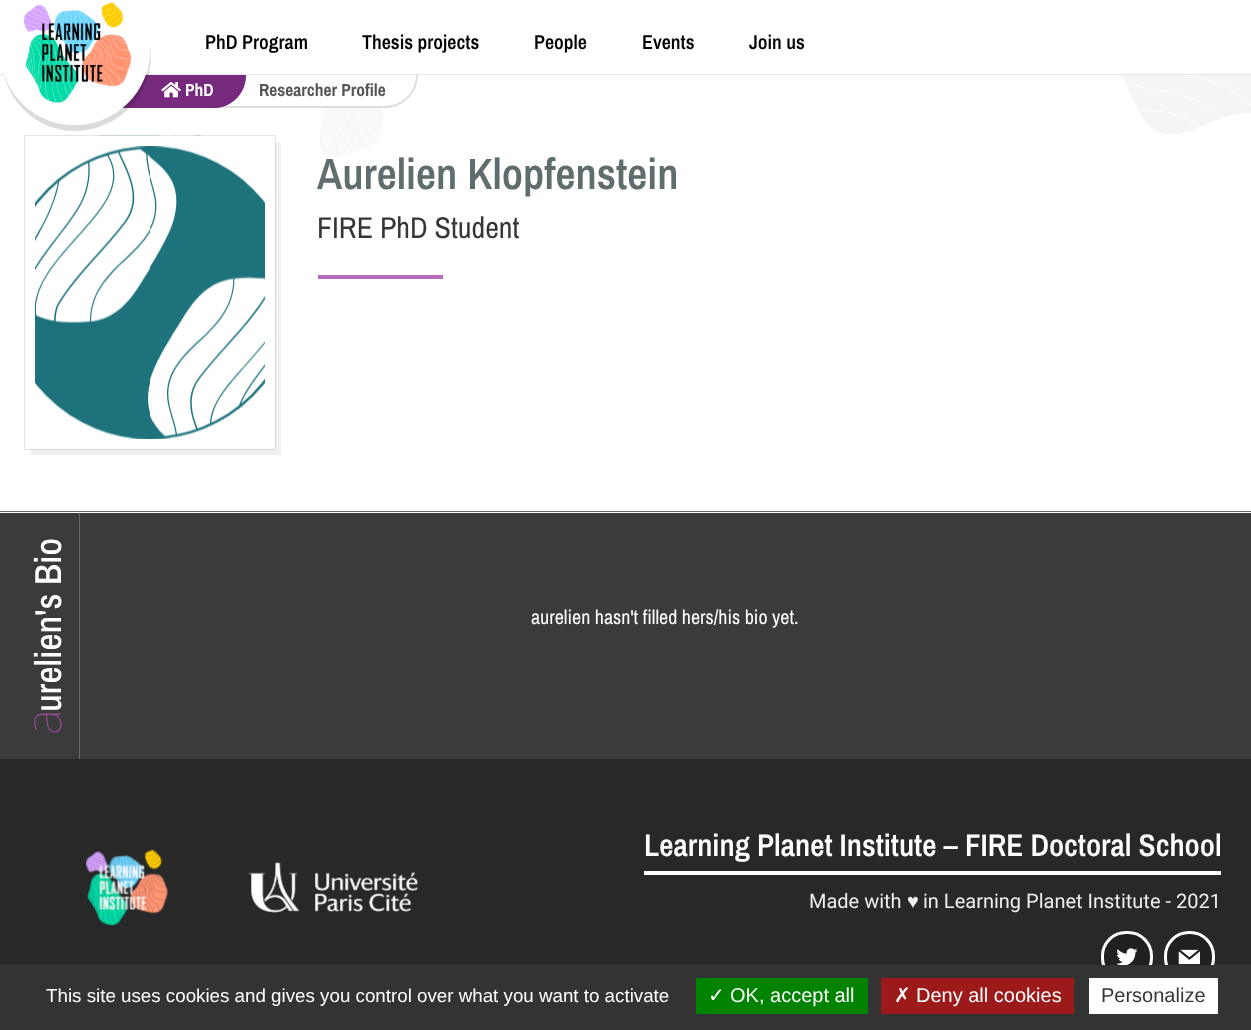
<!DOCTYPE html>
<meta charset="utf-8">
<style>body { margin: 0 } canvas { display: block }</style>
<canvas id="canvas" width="1251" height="1030"></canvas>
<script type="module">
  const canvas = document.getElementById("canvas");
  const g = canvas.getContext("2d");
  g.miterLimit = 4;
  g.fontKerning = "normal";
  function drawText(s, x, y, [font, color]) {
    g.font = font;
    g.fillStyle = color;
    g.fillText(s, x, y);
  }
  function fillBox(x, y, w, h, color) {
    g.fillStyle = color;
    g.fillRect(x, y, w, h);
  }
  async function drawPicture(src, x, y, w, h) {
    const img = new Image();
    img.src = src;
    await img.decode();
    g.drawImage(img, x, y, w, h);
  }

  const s1 = ["600 20px Archivo Narrow", "#000000"];
  const s2 = ["bold 17.5px Archivo Narrow", "#FFFFFF"];
  const s3 = ["bold 17.5px Archivo Narrow", "#555555"];
  const s4 = ["600 43.75px Archivo Narrow", "#606D6E"];
  const s5 = ["30px Archivo Narrow", "#363636"];
  const s6 = ["20px Archivo Narrow", "#FFFFFF"];
  const s7 = ["600 31.25px Archivo Narrow", "#FFFFFF"];
  const s8 = ["20px Roboto", "#EEEEEE"];
  const s9 = ["20px Liberation Serif", "#EEEEEE"];
  const s10 = ["18.75px Liberation Sans", "#FFFFFF"];
  const s11 = ["20px DejaVu Sans", "#FFFFFF"];
  const s12 = ["20px Liberation Sans", "#FFFFFF"];
  const s13 = ["20px Liberation Sans", "#363636"];

  fillBox(0, 0, 1251, 1030, "#FFFFFF");
  fillBox(0, 74, 1251, 1, "#E6E6E6");
  g.fillStyle = "#DDDDDD";
  g.beginPath();
  g.moveTo(202, 75);
  g.lineTo(418, 75);
  g.bezierCurveTo(418, 93, 403, 108, 385, 108);
  g.lineTo(202, 108);
  g.closePath();
  g.moveTo(202, 75);
  g.lineTo(416, 75);
  g.bezierCurveTo(416, 92, 402, 106, 385, 106);
  g.lineTo(202, 106);
  g.closePath();
  g.fill("evenodd");
  g.fillStyle = "#772A7D";
  g.beginPath();
  g.roundRect(61, 75, 185, 33, [0, 0, 33, 0]);
  g.fill();
  g.beginPath();
  g.moveTo(61, 75);
  g.lineTo(246, 75);
  g.bezierCurveTo(246, 93, 232, 108, 214, 108);
  g.lineTo(61, 108);
  g.closePath();
  g.moveTo(61, 75);
  g.lineTo(245, 75);
  g.bezierCurveTo(245, 92, 231, 106, 214, 106);
  g.lineTo(61, 106);
  g.closePath();
  g.fill("evenodd");
  g.fillStyle = "rgba(0, 0, 0, 0.14)";
  g.beginPath();
  g.moveTo(2, 65);
  g.bezierCurveTo(4, 83, 13, 100, 26, 112);
  g.bezierCurveTo(80, 160, 164, 110, 149, 41);
  g.bezierCurveTo(158, 107, 80, 151, 27, 108);
  g.bezierCurveTo(14, 97, 5, 82, 2, 65);
  g.closePath();
  g.fill();
  g.fillStyle = "#FFFFFF";
  g.beginPath();
  g.arc(75, 50, 75, 0, Math.PI * 2);
  g.fill();
  await drawPicture("pic1.png", 24, 2, 108, 101);
  drawText("PhD Program", 205, 49, s1);
  drawText("Thesis projects", 362, 49, s1);
  drawText("People", 534, 49, s1);
  drawText("Events", 642, 49, s1);
  drawText("Join us", 749, 49, s1);
  await drawPicture("pic2.png", 161, 82, 20, 16);
  drawText("PhD", 185, 96, s2);
  drawText("Researcher Profile", 259, 96, s3);
  await drawPicture("pic3.png", 319, 108, 64, 49);
  await drawPicture("pic4.png", 1121, 75, 130, 60);
  g.fillStyle = "#F0F0F0";
  g.beginPath();
  g.moveTo(31, 449);
  g.lineTo(31, 455);
  g.lineTo(281, 455);
  g.lineTo(281, 143);
  g.lineTo(275, 143);
  g.lineTo(275, 449);
  g.closePath();
  g.fill();
  await drawPicture("pic5.png", 35, 135, 230, 304);
  g.strokeStyle = "#FFFFFF";
  g.lineWidth = 10;
  g.strokeRect(30, 141, 240, 303);
  g.strokeStyle = "rgba(0, 0, 0, 0.1)";
  g.lineWidth = 1;
  g.strokeRect(24.5, 135.5, 251, 314);
  drawText("Aurelien Klopfenstein", 317, 189, s4);
  drawText("FIRE PhD Student", 317, 238, s5);
  fillBox(318, 275, 125, 4, "#B66BBB");
  fillBox(0, 511, 1251, 1, "#666666");
  fillBox(0, 513, 1251, 246, "#3B3B3B");
  g.font = "500 37.5px Archivo Narrow";
  g.fillStyle = "#FFFFFF";
  g.save();
  g.translate(61, 712);
  g.rotate(-90 * Math.PI / 180);
  g.fillText("urelien's Bio", 0, 0);
  g.restore();
  g.font = "100 50px Noto Sans";
  g.fillStyle = "#914B96";
  g.save();
  g.translate(61, 735);
  g.rotate(-90 * Math.PI / 180);
  g.fillText("a", 0, 0);
  g.restore();
  fillBox(79, 513, 1, 250, "#666666");
  drawText("aurelien hasn't filled hers/his bio yet.", 531, 624, s6);
  fillBox(0, 759, 1251, 206, "#282828");
  await drawPicture("pic6.png", 86, 849, 83, 77);
  await drawPicture("pic7.png", 248, 862, 171, 51);
  drawText("Learning Planet Institute – FIRE Doctoral School", 644, 856, s7);
  fillBox(644, 871, 577, 4, "#FFFFFF");
  drawText("Made with", 809, 908, s8);
  drawText("♥", 907, 908, s9);
  drawText("in Learning Planet Institute - 2021", 923, 908, s8);
  g.fillStyle = "#202020";
  g.beginPath();
  g.roundRect(1102.5, 932.5, 49, 49, 23.5);
  g.fill();
  g.strokeStyle = "#FFFFFF";
  g.lineWidth = 3;
  g.stroke();
  await drawPicture("pic8.png", 1116, 948, 22, 17);
  g.beginPath();
  g.roundRect(1165.5, 932.5, 48, 49, 23.5);
  g.fill();
  g.stroke();
  await drawPicture("pic9.png", 1178, 949, 22, 16);
  fillBox(0, 965, 1251, 65, "#333333");
  drawText("This site uses cookies and gives you control over what you want to activate", 46, 1002, s10);
  fillBox(696, 978, 172, 36, "#008300");
  drawText("✓", 708, 1002, s11);
  drawText("OK, accept all", 730, 1002, s12);
  fillBox(881, 978, 193, 36, "#9C1A1A");
  drawText("✗", 894, 1002, s11);
  drawText("Deny all cookies", 916, 1002, s12);
  fillBox(1089, 978, 129, 36, "#FFFFFF");
  drawText("Personalize", 1101, 1002, s13);
</script>
